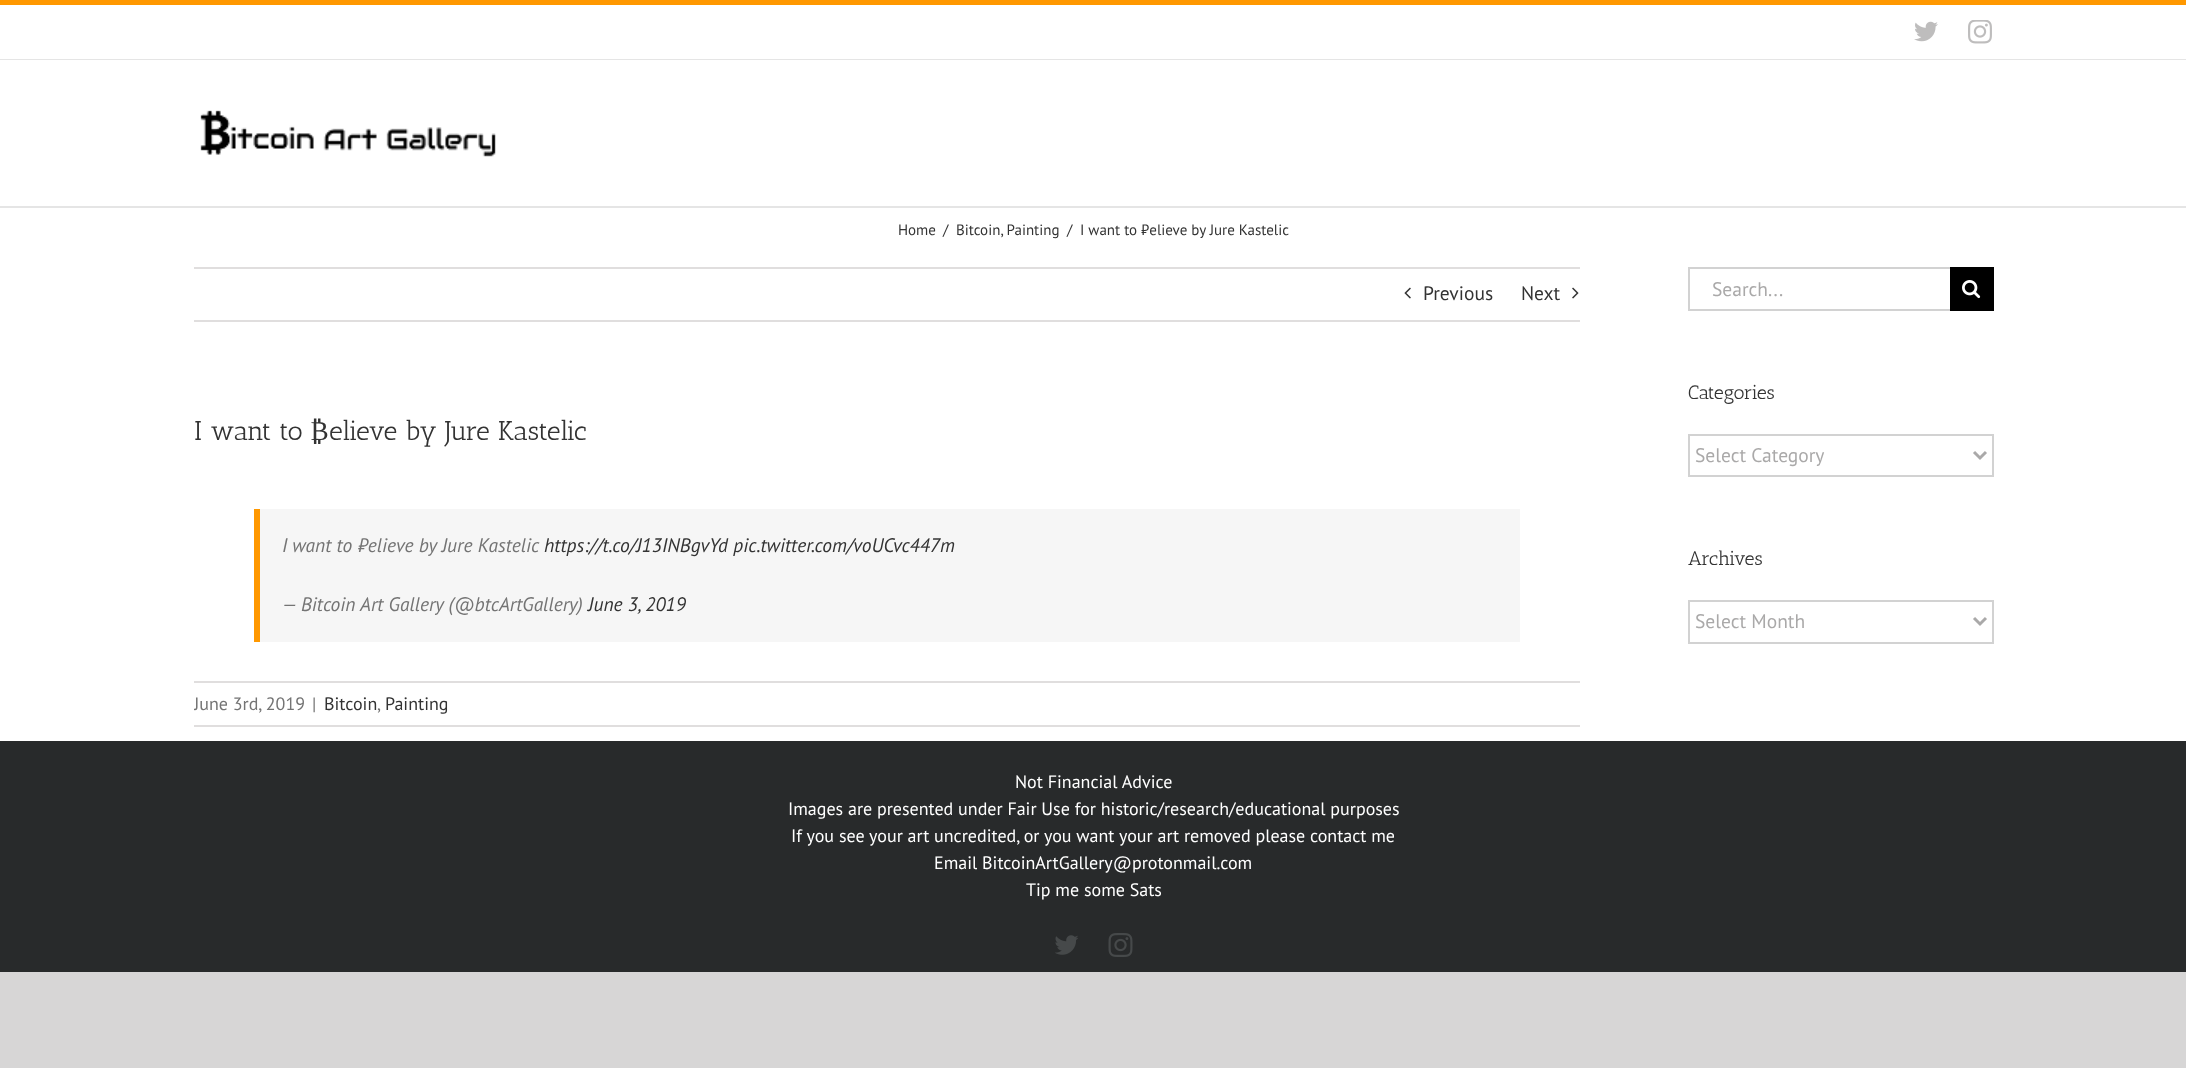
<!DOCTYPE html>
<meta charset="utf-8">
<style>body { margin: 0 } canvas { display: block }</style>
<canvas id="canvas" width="2186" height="1068"></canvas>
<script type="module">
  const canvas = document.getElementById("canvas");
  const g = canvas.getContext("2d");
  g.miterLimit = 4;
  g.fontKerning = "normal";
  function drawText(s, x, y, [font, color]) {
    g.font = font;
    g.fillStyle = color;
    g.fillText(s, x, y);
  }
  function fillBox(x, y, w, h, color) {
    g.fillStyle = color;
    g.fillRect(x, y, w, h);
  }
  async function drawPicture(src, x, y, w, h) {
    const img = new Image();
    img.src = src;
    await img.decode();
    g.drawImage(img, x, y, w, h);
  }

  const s1 = ["15px PT Sans", "#333333"];
  const s2 = ["19.5px PT Sans", "#333333"];
  const s3 = ["27px Antic Slab", "#333333"];
  const s4 = ["27px Liberation Serif", "#333333"];
  const s5 = ["italic 19.5px PT Sans", "#747474"];
  const s6 = ["italic 19.5px PT Sans", "#333333"];
  const s7 = ["18px PT Sans", "#747474"];
  const s8 = ["18px PT Sans", "#333333"];
  const s9 = ["19.5px PT Sans", "#AAA9A9"];
  const s10 = ["19.5px Antic Slab", "#333333"];
  const s11 = ["18px PT Sans", "#FFFFFF"];

  fillBox(0, 0, 2186, 1068, "#D7D6D6");
  fillBox(0, 5, 2186, 736, "#FFFFFF");
  fillBox(0, 0, 2186, 5, "#FF9800");
  fillBox(0, 59, 2186, 1, "#E5E5E5");
  await drawPicture("pic1.png", 1914, 21, 24, 21);
  await drawPicture("pic2.png", 1968, 20, 24, 24);
  fillBox(0, 206, 2186, 2, "#E5E5E5");
  await drawPicture("pic3.png", 200, 110, 296, 47);
  drawText("Home", 898, 235, s1);
  drawText("/", 943, 235, s1);
  drawText("Bitcoin, Painting", 956, 235, s1);
  drawText("/", 1067, 235, s1);
  drawText("I want to ₿elieve by Jure Kastelic", 1080, 235, s1);
  fillBox(194, 267, 1386, 2, "#E0DEDE");
  fillBox(194, 320, 1386, 2, "#E0DEDE");
  await drawPicture("pic4.png", 1404, 287, 7, 12);
  drawText("Previous", 1423, 300, s2);
  drawText("Next", 1521, 300, s2);
  await drawPicture("pic5.png", 1572, 287, 7, 12);
  drawText("I want to", 194, 440, s3);
  drawText("₿", 310, 440, s4);
  drawText("elieve by Jure Kastelic", 329, 440, s3);
  fillBox(260, 509, 1260, 133, "#F6F6F6");
  fillBox(254, 509, 6, 133, "#FF9800");
  drawText("I want to ₿elieve by Jure Kastelic", 282, 552, s5);
  drawText("https://t.co/J13INBgvYd pic.twitter.com/voUCvc447m", 544, 552, s6);
  drawText("— Bitcoin Art Gallery (@btcArtGallery)", 282, 611, s5);
  drawText("June 3, 2019", 588, 611, s6);
  fillBox(194, 681, 1386, 2, "#E0DEDE");
  fillBox(194, 725, 1386, 2, "#E0DEDE");
  g.save();
  g.beginPath();
  g.rect(194, 683, 1386, 42);
  g.clip();
  drawText("June 3rd, 2019", 194, 710, s7);
  g.restore();
  drawText("|", 312, 710, s7);
  drawText("Bitcoin", 324, 710, s8);
  drawText(",", 377, 710, s7);
  drawText("Painting", 385, 710, s8);
  fillBox(1688, 267, 262, 2, "#D2D2D2");
  fillBox(1688, 309, 262, 2, "#D2D2D2");
  fillBox(1688, 267, 2, 44, "#D2D2D2");
  drawText("Search...", 1712, 296, s9);
  fillBox(1950, 267, 44, 44, "#000000");
  await drawPicture("pic6.png", 1962, 280, 19, 19);
  drawText("Categories", 1688, 399, s10);
  g.strokeStyle = "#D2D2D2";
  g.lineWidth = 2;
  g.strokeRect(1689, 435, 304, 41);
  g.beginPath();
  g.moveTo(1974, 452);
  g.lineTo(1980, 458);
  g.lineTo(1986, 452);
  g.strokeStyle = "#AAA9A9";
  g.lineWidth = 3;
  g.stroke();
  drawText("Select Category", 1695, 462, s9);
  drawText("Archives", 1688, 565, s10);
  g.strokeStyle = "#D2D2D2";
  g.lineWidth = 2;
  g.strokeRect(1689, 601, 304, 42);
  g.beginPath();
  g.moveTo(1974, 618);
  g.lineTo(1980, 624);
  g.lineTo(1986, 618);
  g.strokeStyle = "#AAA9A9";
  g.lineWidth = 3;
  g.stroke();
  drawText("Select Month", 1695, 628, s9);
  fillBox(0, 741, 2186, 231, "#282A2B");
  drawText("Not Financial Advice", 1015, 788, s11);
  drawText("Images are presented under Fair Use for historic/research/educational purposes", 788, 815, s11);
  drawText("If you see your art uncredited, or you want your art removed please contact me", 791, 842, s11);
  drawText("Email BitcoinArtGallery@protonmail.com", 934, 869, s11);
  drawText("Tip me some Sats", 1026, 896, s11);
  await drawPicture("pic7.png", 1055, 935, 23, 20);
  await drawPicture("pic8.png", 1108, 933, 25, 24);
</script>
